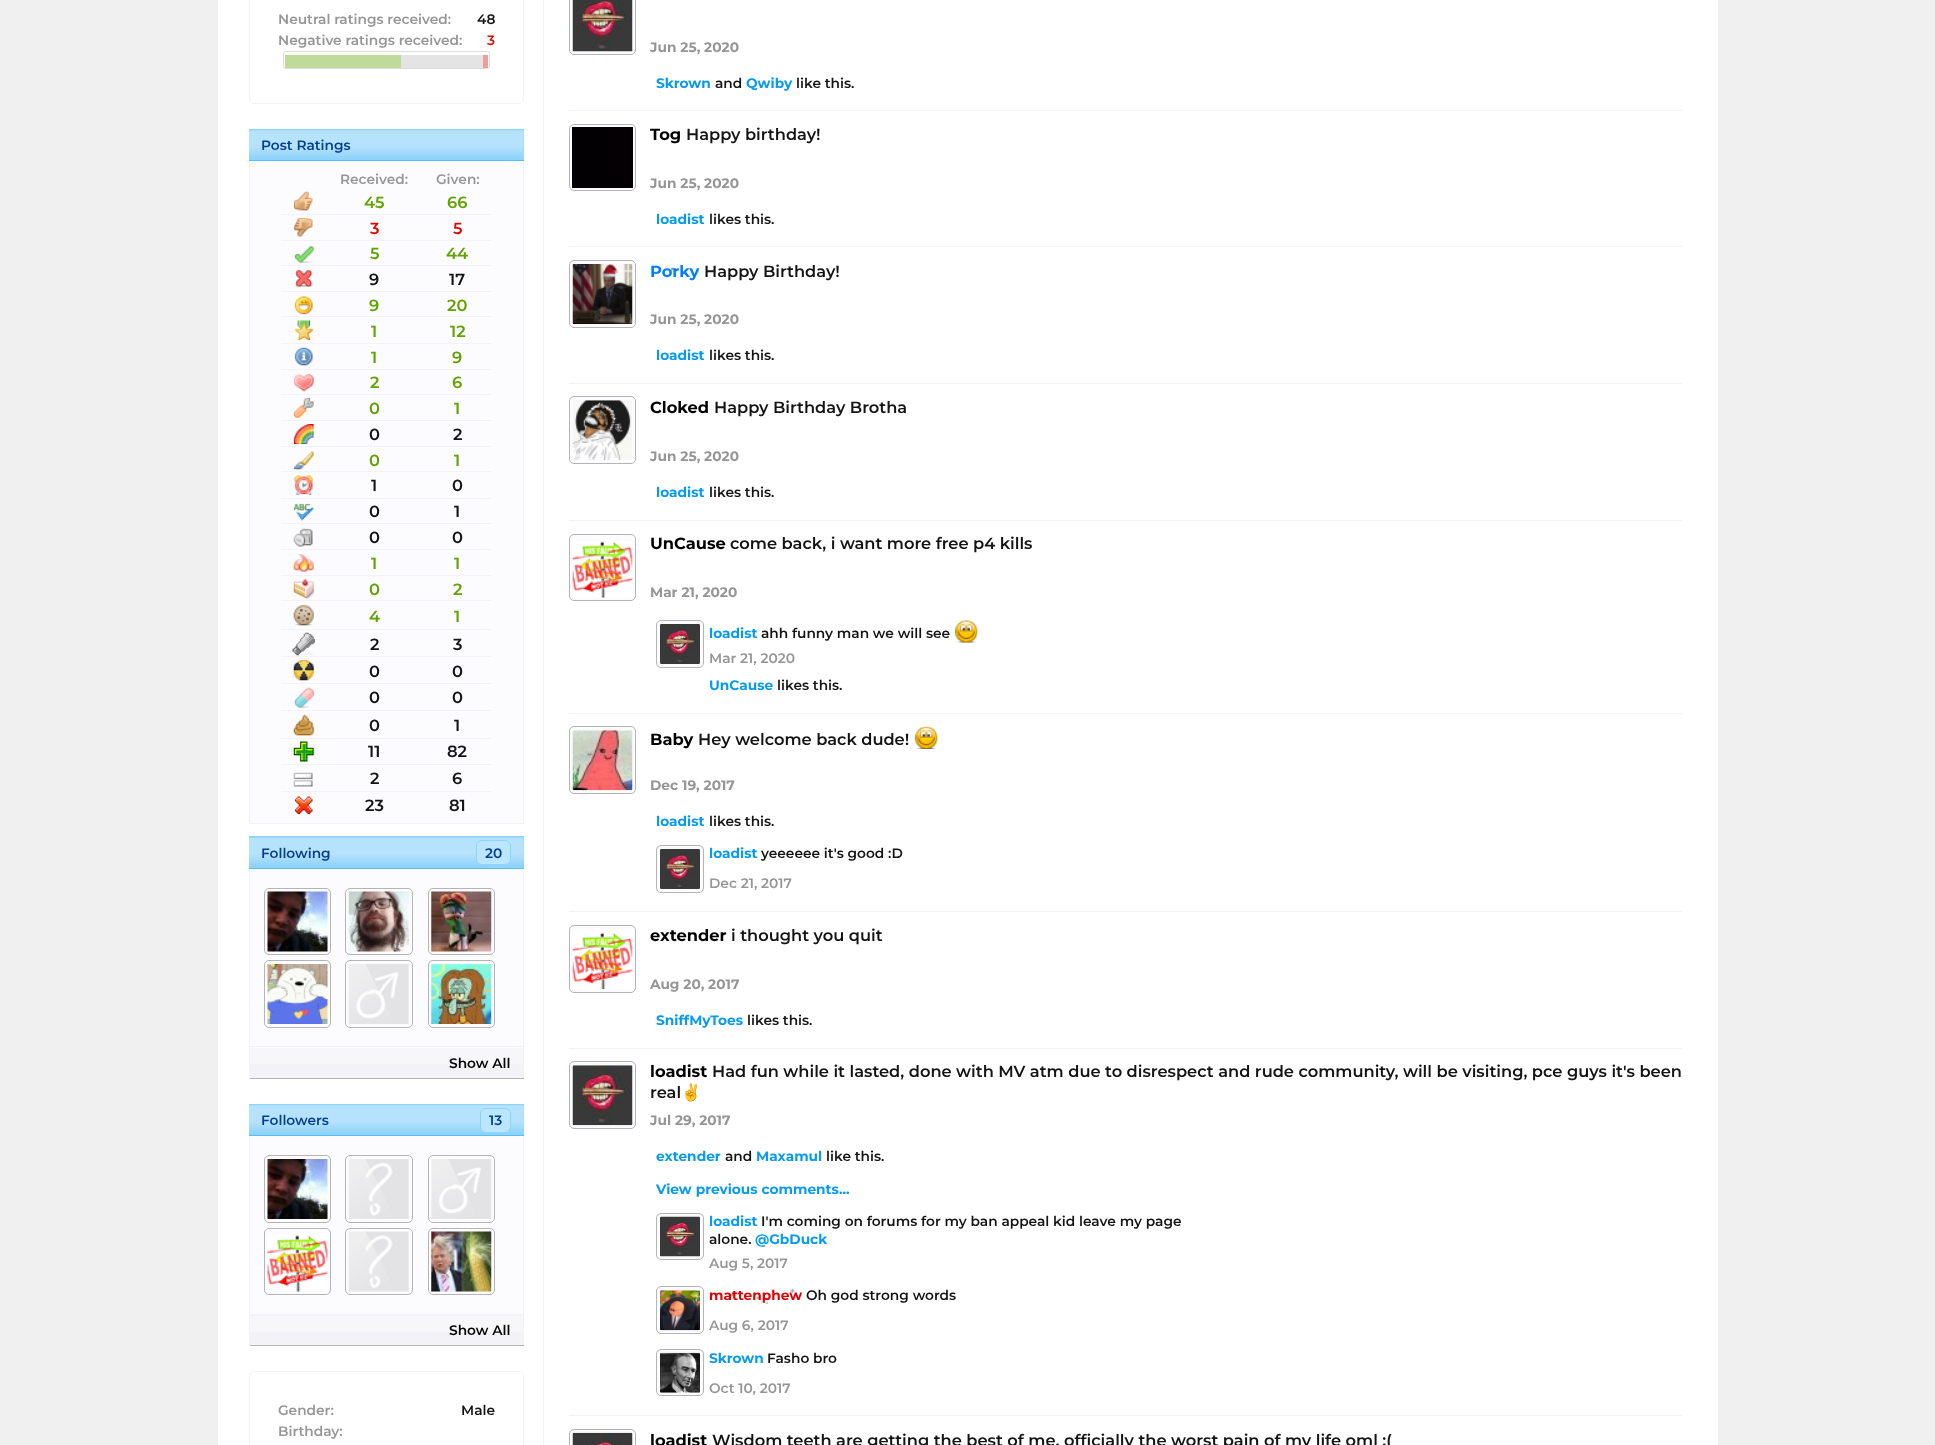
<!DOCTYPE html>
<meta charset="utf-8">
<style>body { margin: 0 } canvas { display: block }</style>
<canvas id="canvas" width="1935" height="1445"></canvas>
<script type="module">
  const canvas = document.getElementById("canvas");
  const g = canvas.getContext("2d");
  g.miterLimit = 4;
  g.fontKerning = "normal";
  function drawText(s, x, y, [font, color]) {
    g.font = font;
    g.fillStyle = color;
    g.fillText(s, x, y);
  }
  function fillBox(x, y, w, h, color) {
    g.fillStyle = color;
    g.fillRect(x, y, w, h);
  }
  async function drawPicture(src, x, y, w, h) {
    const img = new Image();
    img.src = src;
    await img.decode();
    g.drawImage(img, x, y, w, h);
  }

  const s1 = ["600 13.75px Montserrat", "#969696"];
  const s2 = ["600 13.75px Montserrat", "#141414"];
  const s3 = ["600 13.75px Montserrat", "#D90B00"];
  const s4 = ["600 13.75px Montserrat", "#063F8F"];
  const s5 = ["600 16.25px Montserrat", "#62A201"];
  const s6 = ["600 16.25px Montserrat", "#D90B00"];
  const s7 = ["600 16.25px Montserrat", "#141414"];
  const s8 = ["600 13.75px Montserrat", "#000000"];
  const s9 = ["bold 13.75px Montserrat", "#969696"];
  const s10 = ["bold 13.75px Montserrat", "#079BF0"];
  const s11 = ["bold 16.25px Montserrat", "#000000"];
  const s12 = ["bold 16.25px Montserrat", "#0080FF"];
  const s13 = ["bold 16.25px Noto Color Emoji", "#141414"];
  const s14 = ["bold 13.75px Montserrat", "#DF0101"];

  fillBox(0, 0, 1935, 1445, "#F0F0F0");
  fillBox(218, 0, 1500, 1445, "#FFFFFF");
  fillBox(543, 0, 1, 1445, "#F3F3F7");
  g.beginPath();
  g.roundRect(249.5, -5.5, 274, 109, 4.5);
  g.strokeStyle = "#F3F3F7";
  g.stroke();
  drawText("Neutral ratings received:", 278, 24, s1);
  drawText("48", 477, 24, s2);
  drawText("Negative ratings received:", 278, 45, s1);
  drawText("3", 487, 45, s3);
  g.beginPath();
  g.roundRect(283.5, 51.5, 206, 17, 2);
  g.strokeStyle = "#DDDDDD";
  g.stroke();
  fillBox(285, 55, 116, 13, "#C0DA99");
  fillBox(401, 55, 82, 13, "#E4E4E4");
  fillBox(483, 55, 5, 13, "#F09D99");
  fillBox(249, 129, 275, 31, "#8ED3FA");
  await drawPicture("pic1.png", 249, 130, 275, 28);
  fillBox(249, 160, 275, 1, "#52C0FF");
  drawText("Post Ratings", 261, 150, s4);
  fillBox(250, 161, 273, 662, "#FCFCFF");
  fillBox(249, 823, 275, 1, "#F3F3F7");
  fillBox(523, 161, 1, 662, "#F3F3F7");
  fillBox(249, 161, 1, 662, "#F3F3F7");
  drawText("Received:", 340, 184, s1);
  drawText("Given:", 436, 184, s1);
  await drawPicture("pic2.png", 293, 191, 20, 20);
  drawText("45", 364, 208, s5);
  drawText("66", 447, 208, s5);
  fillBox(281, 214, 210, 1, "#F3F3F7");
  await drawPicture("pic3.png", 293, 217, 20, 20);
  drawText("3", 370, 234, s6);
  drawText("5", 453, 234, s6);
  fillBox(281, 240, 210, 1, "#F3F3F7");
  await drawPicture("pic4.png", 294, 245, 20, 18);
  drawText("5", 370, 259, s5);
  drawText("44", 446, 259, s5);
  fillBox(281, 265, 210, 1, "#F3F3F7");
  await drawPicture("pic5.png", 294, 270, 19, 17);
  drawText("9", 369, 285, s7);
  drawText("17", 449, 285, s7);
  fillBox(281, 291, 210, 1, "#F3F3F7");
  await drawPicture("pic6.png", 294, 296, 19, 19);
  drawText("9", 369, 311, s5);
  drawText("20", 447, 311, s5);
  fillBox(281, 316, 210, 1, "#F3F3F7");
  await drawPicture("pic7.png", 294, 320, 20, 21);
  drawText("1", 371, 337, s5);
  drawText("12", 450, 337, s5);
  fillBox(281, 343, 210, 1, "#F3F3F7");
  await drawPicture("pic8.png", 294, 347, 19, 19);
  drawText("1", 371, 363, s5);
  drawText("9", 452, 363, s5);
  fillBox(281, 369, 210, 1, "#F3F3F7");
  await drawPicture("pic9.png", 293, 373, 21, 19);
  drawText("2", 370, 388, s5);
  drawText("6", 452, 388, s5);
  fillBox(281, 394, 210, 1, "#F3F3F7");
  await drawPicture("pic10.png", 293, 397, 21, 21);
  drawText("0", 369, 414, s5);
  drawText("1", 454, 414, s5);
  fillBox(281, 420, 210, 1, "#F3F3F7");
  await drawPicture("pic11.png", 293, 424, 21, 20);
  drawText("0", 369, 440, s7);
  drawText("2", 453, 440, s7);
  fillBox(281, 446, 210, 1, "#F3F3F7");
  await drawPicture("pic12.png", 293, 451, 21, 19);
  drawText("0", 369, 466, s5);
  drawText("1", 454, 466, s5);
  fillBox(281, 471, 210, 1, "#F3F3F7");
  await drawPicture("pic13.png", 293, 475, 21, 21);
  drawText("1", 371, 491, s7);
  drawText("0", 452, 491, s7);
  fillBox(281, 498, 210, 1, "#F3F3F7");
  await drawPicture("pic14.png", 293, 503, 21, 18);
  drawText("0", 369, 517, s7);
  drawText("1", 454, 517, s7);
  fillBox(281, 523, 210, 1, "#F3F3F7");
  await drawPicture("pic15.png", 293, 528, 20, 19);
  drawText("0", 369, 543, s7);
  drawText("0", 452, 543, s7);
  fillBox(281, 549, 210, 1, "#F3F3F7");
  await drawPicture("pic16.png", 293, 554, 21, 18);
  drawText("1", 371, 569, s5);
  drawText("1", 454, 569, s5);
  fillBox(281, 575, 210, 1, "#F3F3F7");
  await drawPicture("pic17.png", 293, 579, 21, 20);
  drawText("0", 369, 595, s5);
  drawText("2", 453, 595, s5);
  fillBox(281, 600, 210, 1, "#F3F3F7");
  await drawPicture("pic18.png", 293, 605, 21, 21);
  drawText("4", 369, 622, s5);
  drawText("1", 454, 622, s5);
  fillBox(281, 629, 210, 1, "#F3F3F7");
  await drawPicture("pic19.png", 292, 632, 23, 24);
  drawText("2", 370, 650, s7);
  drawText("3", 453, 650, s7);
  fillBox(281, 656, 210, 1, "#F3F3F7");
  await drawPicture("pic20.png", 293, 660, 21, 21);
  drawText("0", 369, 677, s7);
  drawText("0", 452, 677, s7);
  fillBox(281, 683, 210, 1, "#F3F3F7");
  await drawPicture("pic21.png", 293, 687, 22, 21);
  drawText("0", 369, 703, s7);
  drawText("0", 452, 703, s7);
  fillBox(281, 710, 210, 1, "#F3F3F7");
  await drawPicture("pic22.png", 293, 714, 22, 22);
  drawText("0", 369, 731, s7);
  drawText("1", 454, 731, s7);
  fillBox(281, 738, 210, 1, "#F3F3F7");
  await drawPicture("pic23.png", 293, 741, 21, 21);
  drawText("11", 368, 757, s7);
  drawText("82", 447, 757, s7);
  fillBox(281, 764, 210, 1, "#F3F3F7");
  await drawPicture("pic24.png", 293, 772, 20, 15);
  drawText("2", 370, 784, s7);
  drawText("6", 452, 784, s7);
  fillBox(281, 791, 210, 1, "#F3F3F7");
  await drawPicture("pic25.png", 294, 796, 19, 19);
  drawText("23", 365, 811, s7);
  drawText("81", 449, 811, s7);
  fillBox(249, 836, 275, 32, "#8ED3FA");
  await drawPicture("pic26.png", 249, 837, 275, 28);
  fillBox(249, 868, 275, 1, "#52C0FF");
  drawText("Following", 261, 858, s4);
  g.fillStyle = "#BBE6FF";
  g.beginPath();
  g.roundRect(476.5, 840.5, 34, 24, 5.5);
  g.fill();
  g.strokeStyle = "#8ED3FA";
  g.stroke();
  drawText("20", 485, 858, s4);
  fillBox(250, 869, 273, 179, "#FCFCFF");
  fillBox(523, 869, 1, 179, "#F3F3F7");
  fillBox(249, 1046, 275, 1, "#F3F3F7");
  fillBox(249, 869, 1, 179, "#F3F3F7");
  await drawPicture("pic27.png", 267, 891, 61, 61);
  g.beginPath();
  g.roundRect(264.5, 888.5, 66, 66, 4.5);
  g.strokeStyle = "#B4B4B4";
  g.stroke();
  await drawPicture("pic28.png", 348, 891, 61, 61);
  g.beginPath();
  g.roundRect(345.5, 888.5, 67, 66, 4.5);
  g.stroke();
  await drawPicture("pic29.png", 431, 891, 61, 61);
  g.beginPath();
  g.roundRect(428.5, 888.5, 66, 66, 4.5);
  g.stroke();
  await drawPicture("pic30.png", 267, 964, 61, 60);
  g.beginPath();
  g.roundRect(264.5, 960.5, 66, 67, 4.5);
  g.stroke();
  await drawPicture("pic31.png", 348, 964, 61, 60);
  g.beginPath();
  g.roundRect(345.5, 960.5, 67, 67, 4.5);
  g.stroke();
  await drawPicture("pic32.png", 431, 964, 61, 60);
  g.beginPath();
  g.roundRect(428.5, 960.5, 66, 67, 4.5);
  g.stroke();
  fillBox(250, 1048, 274, 30, "#F3F3F7");
  fillBox(250, 1048, 273, 16, "#F7F7FA");
  fillBox(249, 1078, 275, 1, "#B4B4B4");
  fillBox(249, 1048, 1, 31, "#F3F3F7");
  drawText("Show All", 449, 1068, s8);
  fillBox(249, 1104, 275, 31, "#8ED3FA");
  await drawPicture("pic1.png", 249, 1105, 275, 28);
  fillBox(249, 1135, 275, 1, "#52C0FF");
  drawText("Followers", 261, 1125, s4);
  g.fillStyle = "#BBE6FF";
  g.beginPath();
  g.roundRect(480.5, 1108.5, 30, 24, 5.5);
  g.fill();
  g.strokeStyle = "#8ED3FA";
  g.stroke();
  drawText("13", 489, 1125, s4);
  fillBox(250, 1136, 273, 178, "#FCFCFF");
  fillBox(523, 1136, 1, 179, "#F3F3F7");
  fillBox(249, 1314, 275, 1, "#F3F3F7");
  fillBox(249, 1136, 1, 179, "#F3F3F7");
  await drawPicture("pic33.png", 267, 1159, 61, 60);
  g.beginPath();
  g.roundRect(264.5, 1155.5, 66, 67, 4.5);
  g.strokeStyle = "#B4B4B4";
  g.stroke();
  await drawPicture("pic34.png", 348, 1159, 61, 60);
  g.beginPath();
  g.roundRect(345.5, 1155.5, 67, 67, 4.5);
  g.stroke();
  await drawPicture("pic35.png", 431, 1159, 61, 60);
  g.beginPath();
  g.roundRect(428.5, 1155.5, 66, 67, 4.5);
  g.stroke();
  await drawPicture("pic36.png", 267, 1235, 61, 57);
  g.beginPath();
  g.roundRect(264.5, 1228.5, 66, 66, 4.5);
  g.stroke();
  await drawPicture("pic37.png", 348, 1231, 61, 61);
  g.beginPath();
  g.roundRect(345.5, 1228.5, 67, 66, 4.5);
  g.stroke();
  await drawPicture("pic38.png", 431, 1231, 61, 61);
  g.beginPath();
  g.roundRect(428.5, 1228.5, 66, 66, 4.5);
  g.stroke();
  fillBox(250, 1315, 274, 30, "#F3F3F7");
  fillBox(250, 1316, 273, 16, "#F7F7FA");
  fillBox(249, 1345, 275, 1, "#B4B4B4");
  fillBox(249, 1315, 1, 31, "#F3F3F7");
  drawText("Show All", 449, 1335, s8);
  g.beginPath();
  g.roundRect(249.5, 1371.5, 274, 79, 4.5);
  g.strokeStyle = "#F3F3F7";
  g.stroke();
  drawText("Gender:", 278, 1415, s1);
  drawText("Male", 461, 1415, s2);
  drawText("Birthday:", 278, 1436, s1);
  fillBox(569, 110, 1114, 1, "#F3F3F7");
  g.fillStyle = "#FCFCFF";
  g.beginPath();
  g.roundRect(569.5, -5.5, 66, 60, 4.5);
  g.fill();
  g.strokeStyle = "#B4B4B4";
  g.stroke();
  await drawPicture("pic39.png", 572, 0, 61, 52);
  drawText("Jun 25, 2020", 650, 52, s9);
  drawText("Skrown", 656, 88, s10);
  drawText("and", 715, 88, s2);
  drawText("Qwiby", 746, 88, s10);
  drawText("like this.", 796, 88, s2);
  fillBox(569, 246, 1114, 1, "#F3F3F7");
  g.fillStyle = "#FCFCFF";
  g.beginPath();
  g.roundRect(569.5, 124.5, 66, 66, 4.5);
  g.fill();
  g.stroke();
  fillBox(572, 127, 61, 61, "#020003");
  drawText("Tog", 650, 140, s11);
  drawText("Happy birthday!", 686, 140, s7);
  drawText("Jun 25, 2020", 650, 188, s9);
  drawText("loadist", 656, 224, s10);
  drawText("likes this.", 709, 224, s2);
  fillBox(569, 383, 1114, 1, "#F3F3F7");
  g.fillStyle = "#FCFCFF";
  g.beginPath();
  g.roundRect(569.5, 260.5, 66, 67, 4.5);
  g.fill();
  g.stroke();
  await drawPicture("pic40.png", 572, 264, 61, 60);
  await drawPicture("pic41.png", 670, 267, 29, 6);
  drawText("Porky", 650, 277, s12);
  drawText("Happy Birthday!", 704, 277, s7);
  drawText("Jun 25, 2020", 650, 324, s9);
  drawText("loadist", 656, 360, s10);
  drawText("likes this.", 709, 360, s2);
  fillBox(569, 520, 1114, 1, "#F3F3F7");
  g.fillStyle = "#FCFCFF";
  g.beginPath();
  g.roundRect(569.5, 396.5, 66, 67, 4.5);
  g.fill();
  g.stroke();
  await drawPicture("pic42.png", 572, 400, 60, 61);
  drawText("Cloked", 650, 413, s11);
  drawText("Happy Birthday Brotha", 714, 413, s7);
  drawText("Jun 25, 2020", 650, 461, s9);
  drawText("loadist", 656, 497, s10);
  drawText("likes this.", 709, 497, s2);
  fillBox(569, 713, 1114, 1, "#F3F3F7");
  g.fillStyle = "#FCFCFF";
  g.beginPath();
  g.roundRect(569.5, 534.5, 66, 66, 4.5);
  g.fill();
  g.stroke();
  await drawPicture("pic43.png", 572, 541, 61, 57);
  drawText("UnCause", 650, 549, s11);
  drawText("come back, i want more free p4 kills", 730, 549, s7);
  drawText("Mar 21, 2020", 650, 597, s9);
  g.fillStyle = "#FCFCFF";
  g.beginPath();
  g.roundRect(656.5, 620.5, 47, 47, 4.5);
  g.fill();
  g.stroke();
  await drawPicture("pic44.png", 660, 624, 40, 40);
  drawText("loadist", 709, 638, s10);
  drawText("ahh funny man we will see", 761, 638, s2);
  await drawPicture("pic45.png", 955, 620, 23, 23);
  drawText("Mar 21, 2020", 709, 663, s1);
  drawText("UnCause", 709, 690, s10);
  drawText("likes this.", 777, 690, s2);
  fillBox(569, 911, 1114, 1, "#F3F3F7");
  g.fillStyle = "#FCFCFF";
  g.beginPath();
  g.roundRect(569.5, 726.5, 66, 67, 4.5);
  g.fill();
  g.stroke();
  await drawPicture("pic46.png", 572, 730, 61, 61);
  drawText("Baby", 650, 745, s11);
  drawText("Hey welcome back dude!", 698, 745, s7);
  await drawPicture("pic47.png", 915, 726, 23, 23);
  drawText("Dec 19, 2017", 650, 790, s9);
  drawText("loadist", 656, 826, s10);
  drawText("likes this.", 709, 826, s2);
  g.fillStyle = "#FCFCFF";
  g.beginPath();
  g.roundRect(656.5, 845.5, 47, 47, 4.5);
  g.fill();
  g.stroke();
  await drawPicture("pic48.png", 660, 849, 40, 40);
  drawText("loadist", 709, 858, s10);
  drawText("yeeeeee it's good :D", 761, 858, s2);
  drawText("Dec 21, 2017", 709, 888, s1);
  fillBox(569, 1048, 1114, 1, "#F3F3F7");
  g.fillStyle = "#FCFCFF";
  g.beginPath();
  g.roundRect(569.5, 925.5, 66, 67, 4.5);
  g.fill();
  g.stroke();
  await drawPicture("pic49.png", 572, 932, 61, 57);
  drawText("extender", 650, 941, s11);
  drawText("i thought you quit", 731, 941, s7);
  drawText("Aug 20, 2017", 650, 989, s9);
  drawText("SniffMyToes", 656, 1025, s10);
  drawText("likes this.", 747, 1025, s2);
  fillBox(569, 1415, 1114, 1, "#F3F3F7");
  g.fillStyle = "#FCFCFF";
  g.beginPath();
  g.roundRect(569.5, 1061.5, 66, 67, 4.5);
  g.fill();
  g.stroke();
  await drawPicture("pic50.png", 572, 1065, 61, 61);
  drawText("loadist", 650, 1077, s11);
  drawText("Had fun while it lasted, done with MV atm due to disrespect and rude community, will be visiting, pce guys it's been", 712, 1077, s7);
  drawText("real", 650, 1098, s7);
  drawText("✌️", 681, 1098, s13);
  drawText("Jul 29, 2017", 650, 1125, s9);
  drawText("extender", 656, 1161, s10);
  drawText("and", 725, 1161, s2);
  drawText("Maxamul", 756, 1161, s10);
  drawText("like this.", 826, 1161, s2);
  drawText("View previous comments...", 656, 1194, s10);
  g.fillStyle = "#FCFCFF";
  g.beginPath();
  g.roundRect(656.5, 1213.5, 47, 46, 4.5);
  g.fill();
  g.stroke();
  await drawPicture("pic51.png", 660, 1216, 40, 41);
  drawText("loadist", 709, 1226, s10);
  drawText("I'm coming on forums for my ban appeal kid leave my page", 761, 1226, s2);
  drawText("alone.", 709, 1244, s2);
  drawText("@GbDuck", 755, 1244, s10);
  drawText("Aug 5, 2017", 709, 1268, s1);
  g.fillStyle = "#FCFCFF";
  g.beginPath();
  g.roundRect(656.5, 1286.5, 47, 47, 4.5);
  g.fill();
  g.stroke();
  await drawPicture("pic52.png", 660, 1290, 40, 41);
  await drawPicture("pic53.png", 730, 1288, 69, 16);
  drawText("mattenphew", 709, 1300, s14);
  drawText("Oh god strong words", 806, 1300, s2);
  drawText("Aug 6, 2017", 709, 1330, s1);
  g.fillStyle = "#FCFCFF";
  g.beginPath();
  g.roundRect(656.5, 1349.5, 47, 46, 4.5);
  g.fill();
  g.stroke();
  await drawPicture("pic54.png", 660, 1352, 40, 41);
  drawText("Skrown", 709, 1363, s10);
  drawText("Fasho bro", 767, 1363, s2);
  drawText("Oct 10, 2017", 709, 1393, s1);
  g.fillStyle = "#FCFCFF";
  g.beginPath();
  g.roundRect(569.5, 1429.5, 66, 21, 4.5);
  g.fill();
  g.stroke();
  await drawPicture("pic55.png", 572, 1432, 61, 13);
  drawText("loadist", 650, 1446, s11);
  drawText("Wisdom teeth are getting the best of me, officially the worst pain of my life oml :(", 712, 1446, s7);
</script>
